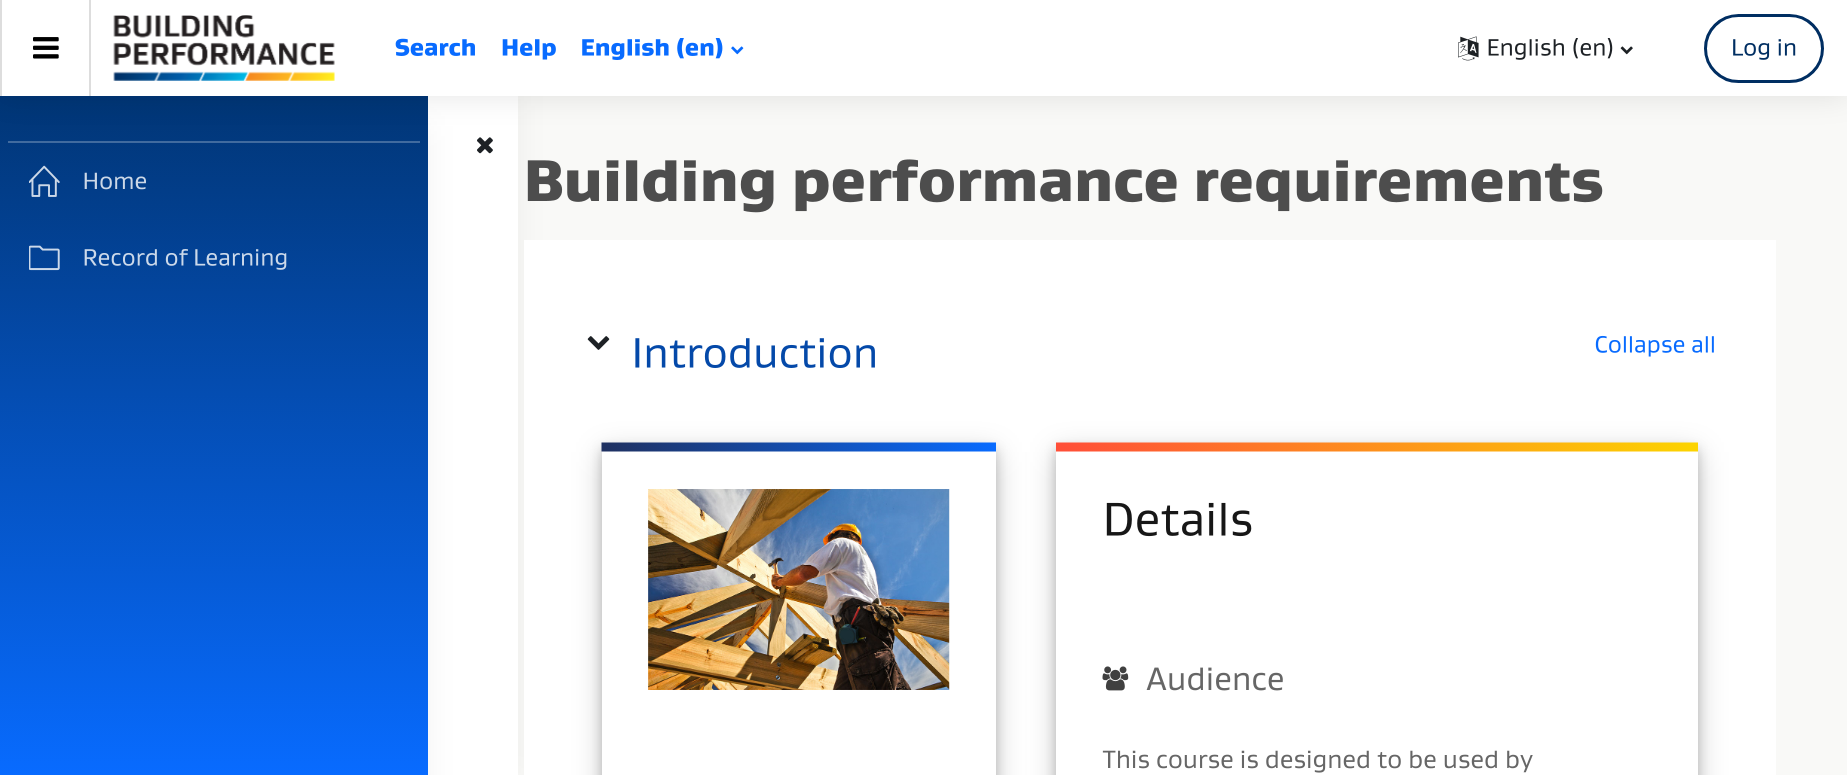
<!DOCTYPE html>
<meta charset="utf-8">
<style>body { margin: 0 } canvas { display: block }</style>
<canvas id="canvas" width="1847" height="775"></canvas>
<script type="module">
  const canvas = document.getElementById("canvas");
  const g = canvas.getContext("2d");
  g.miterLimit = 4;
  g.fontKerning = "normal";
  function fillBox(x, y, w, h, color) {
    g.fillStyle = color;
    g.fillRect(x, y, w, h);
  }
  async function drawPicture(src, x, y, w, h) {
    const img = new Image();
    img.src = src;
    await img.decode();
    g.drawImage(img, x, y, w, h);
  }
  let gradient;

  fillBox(0, 0, 1847, 775, "#F9F9F7");
  g.fillStyle = "rgba(0, 0, 0, 0.05)";
  g.filter = "blur(15px)";
  g.beginPath();
  g.rect(90, 96, 428, 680);
  g.fill();
  g.filter = "none";
  fillBox(428, 96, 90, 679, "#FFFFFF");
  await drawPicture("pic11.png", 477, 137, 16, 17);
  g.fillStyle = "rgba(0, 0, 0, 0.05)";
  g.filter = "blur(15px)";
  g.beginPath();
  g.rect(0, 126, 428, 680);
  g.fill();
  g.filter = "none";
  gradient = g.createLinearGradient(214, 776, 214, 0);
  gradient.addColorStop(0, "#086BFF");
  gradient.addColorStop(1, "#002E62");
  g.fillStyle = gradient;
  g.fillRect(0, 96, 428, 679);
  fillBox(8, 141, 412, 2, "#416B9F");
  g.fillStyle = "rgba(0, 0, 0, 0.1)";
  g.filter = "blur(15px)";
  g.beginPath();
  g.rect(0, 0, 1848, 96);
  g.fill();
  g.filter = "none";
  fillBox(2, 0, 1845, 96, "#FFFFFF");
  fillBox(89, 0, 2, 96, "#DDDDDD");
  fillBox(0, 0, 2, 96, "#DDDDDD");
  await drawPicture("pic1.png", 33, 37, 26, 22);
  await drawPicture("pic2.png", 113, 15, 222, 66);
  await drawPicture("pic3.png", 395, 38, 80, 18);
  await drawPicture("pic4.png", 502, 39, 54, 21);
  await drawPicture("pic5.png", 582, 38, 141, 22);
  await drawPicture("pic6.png", 731, 46, 13, 9);
  await drawPicture("pic7.png", 1458, 36, 21, 25);
  await drawPicture("pic8.png", 1488, 38, 125, 22);
  await drawPicture("pic9.png", 1620, 46, 13, 9);
  g.beginPath();
  g.roundRect(1705.5, 15.5, 117, 66, 33);
  g.strokeStyle = "#002E62";
  g.lineWidth = 3;
  g.stroke();
  await drawPicture("pic10.png", 1733, 39, 63, 21);
  await drawPicture("pic12.png", 527, 159, 1076, 54);
  fillBox(524, 240, 1252, 535, "#FFFFFF");
  await drawPicture("pic13.png", 587, 336, 23, 14);
  await drawPicture("pic14.png", 635, 338, 240, 30);
  await drawPicture("pic15.png", 1595, 335, 119, 22);
  g.save();
  g.beginPath();
  g.moveTo(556, 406);
  g.lineTo(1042, 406);
  g.lineTo(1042, 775);
  g.lineTo(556, 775);
  g.closePath();
  g.moveTo(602, 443);
  g.lineTo(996, 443);
  g.lineTo(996, 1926);
  g.lineTo(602, 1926);
  g.closePath();
  g.clip("evenodd");
  g.fillStyle = "rgba(0, 0, 0, 0.19)";
  g.filter = "blur(15px)";
  g.beginPath();
  g.rect(602, 452, 394, 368);
  g.fill();
  g.filter = "none";
  g.restore();
  g.save();
  g.beginPath();
  g.moveTo(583, 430);
  g.lineTo(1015, 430);
  g.lineTo(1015, 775);
  g.lineTo(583, 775);
  g.closePath();
  g.moveTo(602, 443);
  g.lineTo(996, 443);
  g.lineTo(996, 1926);
  g.lineTo(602, 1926);
  g.closePath();
  g.clip("evenodd");
  g.fillStyle = "rgba(0, 0, 0, 0.2)";
  g.filter = "blur(6px)";
  g.beginPath();
  g.rect(602, 449, 394, 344);
  g.fill();
  g.filter = "none";
  g.restore();
  await drawPicture("pic16.png", 601, 442, 395, 10);
  await drawPicture("pic17.png", 648, 489, 302, 201);
  g.save();
  g.beginPath();
  g.moveTo(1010, 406);
  g.lineTo(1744, 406);
  g.lineTo(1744, 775);
  g.lineTo(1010, 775);
  g.closePath();
  g.moveTo(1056, 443);
  g.lineTo(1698, 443);
  g.lineTo(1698, 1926);
  g.lineTo(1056, 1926);
  g.closePath();
  g.clip("evenodd");
  g.fillStyle = "rgba(0, 0, 0, 0.19)";
  g.filter = "blur(15px)";
  g.beginPath();
  g.rect(1056, 452, 642, 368);
  g.fill();
  g.filter = "none";
  g.restore();
  g.save();
  g.beginPath();
  g.moveTo(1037, 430);
  g.lineTo(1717, 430);
  g.lineTo(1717, 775);
  g.lineTo(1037, 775);
  g.closePath();
  g.moveTo(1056, 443);
  g.lineTo(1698, 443);
  g.lineTo(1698, 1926);
  g.lineTo(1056, 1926);
  g.closePath();
  g.clip("evenodd");
  g.fillStyle = "rgba(0, 0, 0, 0.2)";
  g.filter = "blur(6px)";
  g.beginPath();
  g.rect(1056, 449, 642, 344);
  g.fill();
  g.filter = "none";
  g.restore();
  await drawPicture("pic18.png", 1056, 442, 642, 10);
  await drawPicture("pic19.png", 1106, 502, 146, 35);
  await drawPicture("pic20.png", 1102, 666, 27, 25);
  await drawPicture("pic21.png", 1146, 667, 137, 24);
  await drawPicture("pic22.png", 1102, 750, 431, 23);
  await drawPicture("pic23.png", 29, 165, 31, 32);
  await drawPicture("pic24.png", 84, 172, 62, 18);
  await drawPicture("pic25.png", 29, 245, 31, 26);
  await drawPicture("pic26.png", 84, 249, 203, 21);
</script>
